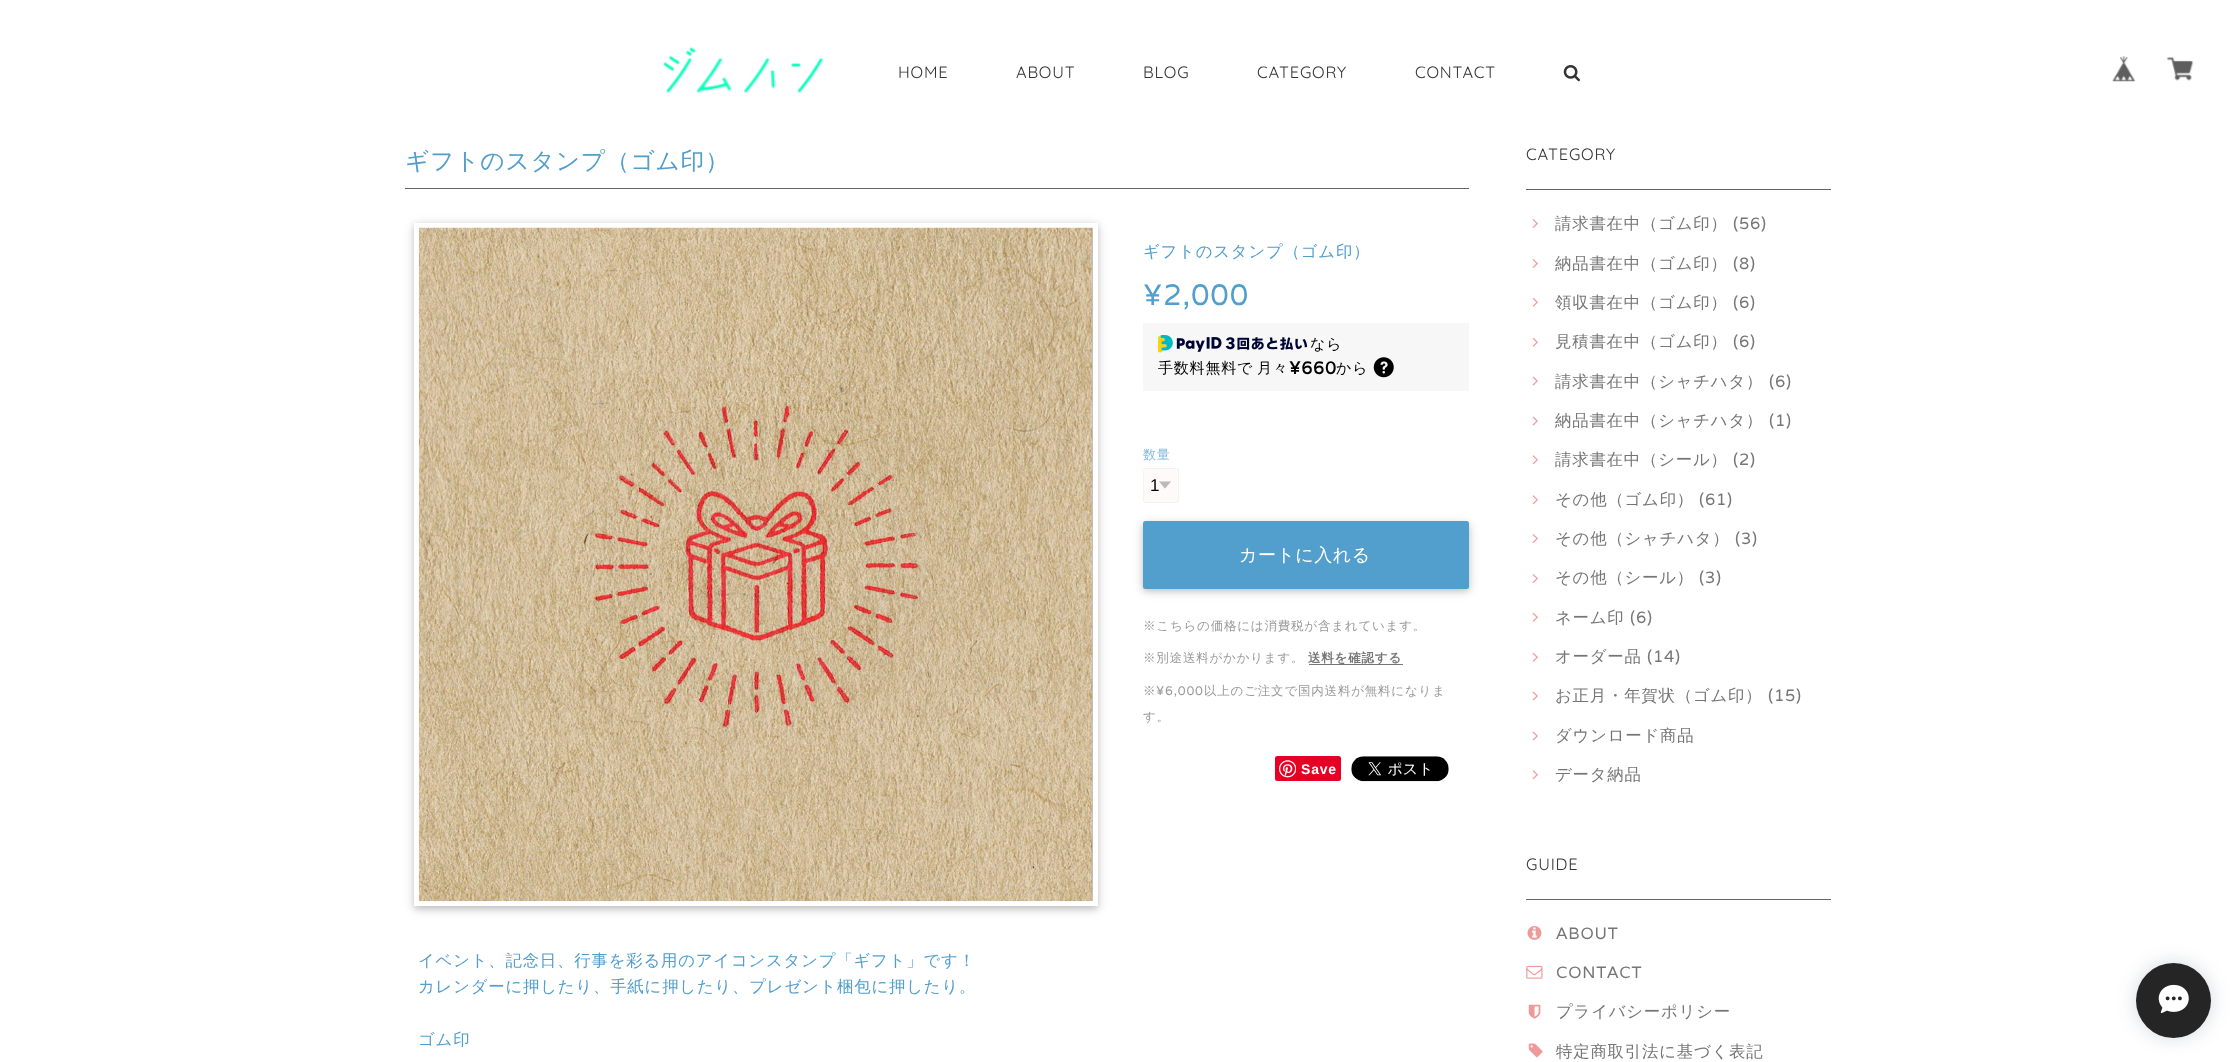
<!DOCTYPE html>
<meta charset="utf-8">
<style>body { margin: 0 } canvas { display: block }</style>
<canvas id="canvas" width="2236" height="1062"></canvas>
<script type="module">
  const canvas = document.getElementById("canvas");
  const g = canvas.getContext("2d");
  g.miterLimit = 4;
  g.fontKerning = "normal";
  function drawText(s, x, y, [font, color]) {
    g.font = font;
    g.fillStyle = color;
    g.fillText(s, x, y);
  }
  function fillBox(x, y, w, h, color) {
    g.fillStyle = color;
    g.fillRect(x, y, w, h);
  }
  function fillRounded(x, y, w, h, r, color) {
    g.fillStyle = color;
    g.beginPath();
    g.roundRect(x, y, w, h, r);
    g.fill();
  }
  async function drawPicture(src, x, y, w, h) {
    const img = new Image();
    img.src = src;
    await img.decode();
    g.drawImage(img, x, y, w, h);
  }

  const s1 = ["300 16.4px Quicksand", "#333333"];
  const s2 = ["500 23.75px WenQuanYi Zen Hei", "#529ECC"];
  const s3 = ["500 16.4px WenQuanYi Zen Hei", "#529ECC"];
  const s4 = ["29.5px Varela", "#529ECC"];
  const s5 = ["500 15px WenQuanYi Zen Hei", "#000000"];
  const s6 = ["bold 17.5px Varela", "#000000"];
  const s7 = ["500 13px WenQuanYi Zen Hei", "#86BBDB"];
  const s8 = ["17px Liberation Sans", "#000000"];
  const s9 = ["500 18px WenQuanYi Zen Hei", "#FFFFFF"];
  const s10 = ["500 12.5px WenQuanYi Zen Hei", "#999999"];
  const s11 = ["bold 12.5px WenQuanYi Zen Hei", "#757575"];
  const s12 = ["12.5px Varela", "#999999"];
  const s13 = ["bold 14px Liberation Sans", "#FFFFFF"];
  const s14 = ["500 16.4px WenQuanYi Zen Hei", "#757575"];
  const s15 = ["16.4px Varela", "#757575"];

  fillBox(0, 0, 2236, 1062, "#FFFFFF");
  await drawPicture("pic1.png", 663, 47, 161, 46);
  g.letterSpacing = "0.8px";
  drawText("HOME", 898, 78, s1);
  drawText("ABOUT", 1016, 78, s1);
  drawText("BLOG", 1143, 78, s1);
  drawText("CATEGORY", 1257, 78, s1);
  drawText("CONTACT", 1415, 78, s1);
  await drawPicture("pic2.png", 1563, 65, 17, 17);
  await drawPicture("pic3.png", 2112, 56, 24, 26);
  await drawPicture("pic4.png", 2167, 57, 27, 24);
  fillBox(405, 188, 1064, 1, "#666666");
  drawText("ギフトのスタンプ（ゴム印）", 405, 169, s2);
  g.fillStyle = "rgba(0, 0, 0, 0.12)";
  g.filter = "blur(6px)";
  g.beginPath();
  g.roundRect(414, 225, 684, 684, 2.5);
  g.fill();
  g.filter = "none";
  g.fillStyle = "rgba(0, 0, 0, 0.16)";
  g.filter = "blur(3px)";
  g.beginPath();
  g.roundRect(414, 225, 684, 684, 2.5);
  g.fill();
  g.filter = "none";
  g.beginPath();
  g.rect(416.5, 225.5, 679, 678);
  g.strokeStyle = "#FFFFFF";
  g.lineWidth = 5;
  g.stroke();
  await drawPicture("pic5.png", 418, 227, 675, 675);
  drawText("ギフトのスタンプ（ゴム印）", 1143, 257, s3);
  drawText("¥2,000", 1143, 305, s4);
  fillBox(1143, 323, 326, 68, "#F7F7F7");
  await drawPicture("pic6.png", 1158, 335, 150, 18);
  drawText("なら", 1310, 349, s5);
  drawText("手数料無料で", 1158, 373, s5);
  drawText("月々", 1257, 373, s5);
  drawText("¥660", 1289, 374, s6);
  drawText("から", 1336, 373, s5);
  await drawPicture("pic7.png", 1373, 357, 21, 21);
  drawText("数量", 1143, 459, s7);
  fillRounded(1143, 468, 36, 35, 2.5, "#FFFAFA");
  await drawPicture("pic8.png", 1159, 481, 12, 8);
  g.beginPath();
  g.roundRect(1143.5, 468.5, 35, 34, 2);
  g.strokeStyle = "#F2F2F2";
  g.lineWidth = 1;
  g.stroke();
  g.letterSpacing = "0px";
  drawText("1", 1150, 491, s8);
  g.fillStyle = "rgba(0, 0, 0, 0.12)";
  g.filter = "blur(6px)";
  g.beginPath();
  g.roundRect(1143, 524, 326, 67, 2.5);
  g.fill();
  g.filter = "none";
  g.fillStyle = "rgba(0, 0, 0, 0.16)";
  g.filter = "blur(3px)";
  g.beginPath();
  g.roundRect(1143, 524, 326, 67, 2.5);
  g.fill();
  g.filter = "none";
  fillRounded(1143, 521, 326, 68, 2.5, "#529ECC");
  g.letterSpacing = "0.5px";
  drawText("カートに入れる", 1239, 561, s9);
  g.letterSpacing = "0.8px";
  drawText("※こちらの価格には消費税が含まれています。", 1143, 630, s10);
  drawText("※別途送料がかかります。", 1143, 662, s10);
  fillBox(1309, 664, 94, 1, "#757575");
  drawText("送料を確認する", 1308, 662, s11);
  drawText("※", 1143, 695, s10);
  drawText("¥6,000", 1156, 695, s12);
  drawText("以上のご注文で国内送料が無料になりま", 1204, 695, s10);
  drawText("す。", 1143, 721, s10);
  fillRounded(1275, 756, 66, 25, 2.5, "#E60023");
  await drawPicture("pic9.png", 1279, 760, 17, 18);
  drawText("Save", 1301, 774, s13);
  await drawPicture("pic10.png", 1351, 756, 98, 26);
  drawText("イベント、記念日、行事を彩る用のアイコンスタンプ「ギフト」です！", 418, 966, s3);
  drawText("カレンダーに押したり、手紙に押したり、プレゼント梱包に押したり。", 418, 992, s3);
  drawText("ゴム印", 418, 1045, s3);
  fillBox(1526, 189, 305, 1, "#666666");
  drawText("CATEGORY", 1526, 160, s1);
  await drawPicture("pic11.png", 1532, 219, 6, 9);
  drawText("請求書在中（ゴム印）", 1555, 229, s14);
  drawText("(56)", 1733, 229, s15);
  await drawPicture("pic11.png", 1532, 259, 6, 9);
  drawText("納品書在中（ゴム印）", 1555, 269, s14);
  drawText("(8)", 1733, 269, s15);
  await drawPicture("pic12.png", 1532, 297, 6, 10);
  drawText("領収書在中（ゴム印）", 1555, 308, s14);
  drawText("(6)", 1733, 308, s15);
  await drawPicture("pic12.png", 1532, 337, 6, 10);
  drawText("見積書在中（ゴム印）", 1555, 347, s14);
  drawText("(6)", 1733, 347, s15);
  await drawPicture("pic13.png", 1532, 376, 6, 10);
  drawText("請求書在中（シャチハタ）", 1555, 387, s14);
  drawText("(6)", 1769, 387, s15);
  await drawPicture("pic13.png", 1532, 416, 6, 10);
  drawText("納品書在中（シャチハタ）", 1555, 426, s14);
  drawText("(1)", 1769, 426, s15);
  await drawPicture("pic14.png", 1532, 455, 6, 10);
  drawText("請求書在中（シール）", 1555, 465, s14);
  drawText("(2)", 1733, 465, s15);
  await drawPicture("pic14.png", 1532, 495, 6, 10);
  drawText("その他（ゴム印）", 1555, 505, s14);
  drawText("(61)", 1699, 505, s15);
  await drawPicture("pic11.png", 1532, 534, 6, 9);
  drawText("その他（シャチハタ）", 1555, 544, s14);
  drawText("(3)", 1735, 544, s15);
  await drawPicture("pic11.png", 1532, 574, 6, 9);
  drawText("その他（シール）", 1555, 583, s14);
  drawText("(3)", 1699, 583, s15);
  await drawPicture("pic12.png", 1532, 612, 6, 10);
  drawText("ネーム印", 1555, 623, s14);
  drawText("(6)", 1630, 623, s15);
  await drawPicture("pic12.png", 1532, 652, 6, 10);
  drawText("オーダー品", 1555, 662, s14);
  drawText("(14)", 1647, 662, s15);
  await drawPicture("pic13.png", 1532, 691, 6, 10);
  drawText("お正月・年賀状（ゴム印）", 1555, 701, s14);
  drawText("(15)", 1768, 701, s15);
  await drawPicture("pic13.png", 1532, 731, 6, 10);
  drawText("ダウンロード商品", 1555, 741, s14);
  await drawPicture("pic14.png", 1532, 770, 6, 10);
  drawText("データ納品", 1555, 780, s14);
  fillBox(1526, 899, 305, 1, "#666666");
  drawText("GUIDE", 1526, 870, s1);
  await drawPicture("pic15.png", 1527, 926, 15, 14);
  drawText("ABOUT", 1556, 939, s15);
  await drawPicture("pic16.png", 1526, 965, 17, 14);
  drawText("CONTACT", 1556, 978, s15);
  await drawPicture("pic17.png", 1528, 1004, 13, 15);
  drawText("プライバシーポリシー", 1556, 1017, s14);
  await drawPicture("pic18.png", 1528, 1043, 15, 15);
  drawText("特定商取引法に基づく表記", 1556, 1057, s14);
  g.fillStyle = "rgba(51, 66, 88, 0.2)";
  g.filter = "blur(9.5px)";
  g.beginPath();
  g.roundRect(2136, 963, 75, 75, 37.5);
  g.fill();
  g.filter = "none";
  g.fillStyle = "#252525";
  g.beginPath();
  g.arc(2173.5, 1000.5, 37.5, 0, Math.PI * 2);
  g.fill();
  await drawPicture("pic19.png", 2158, 984, 31, 30);
</script>
